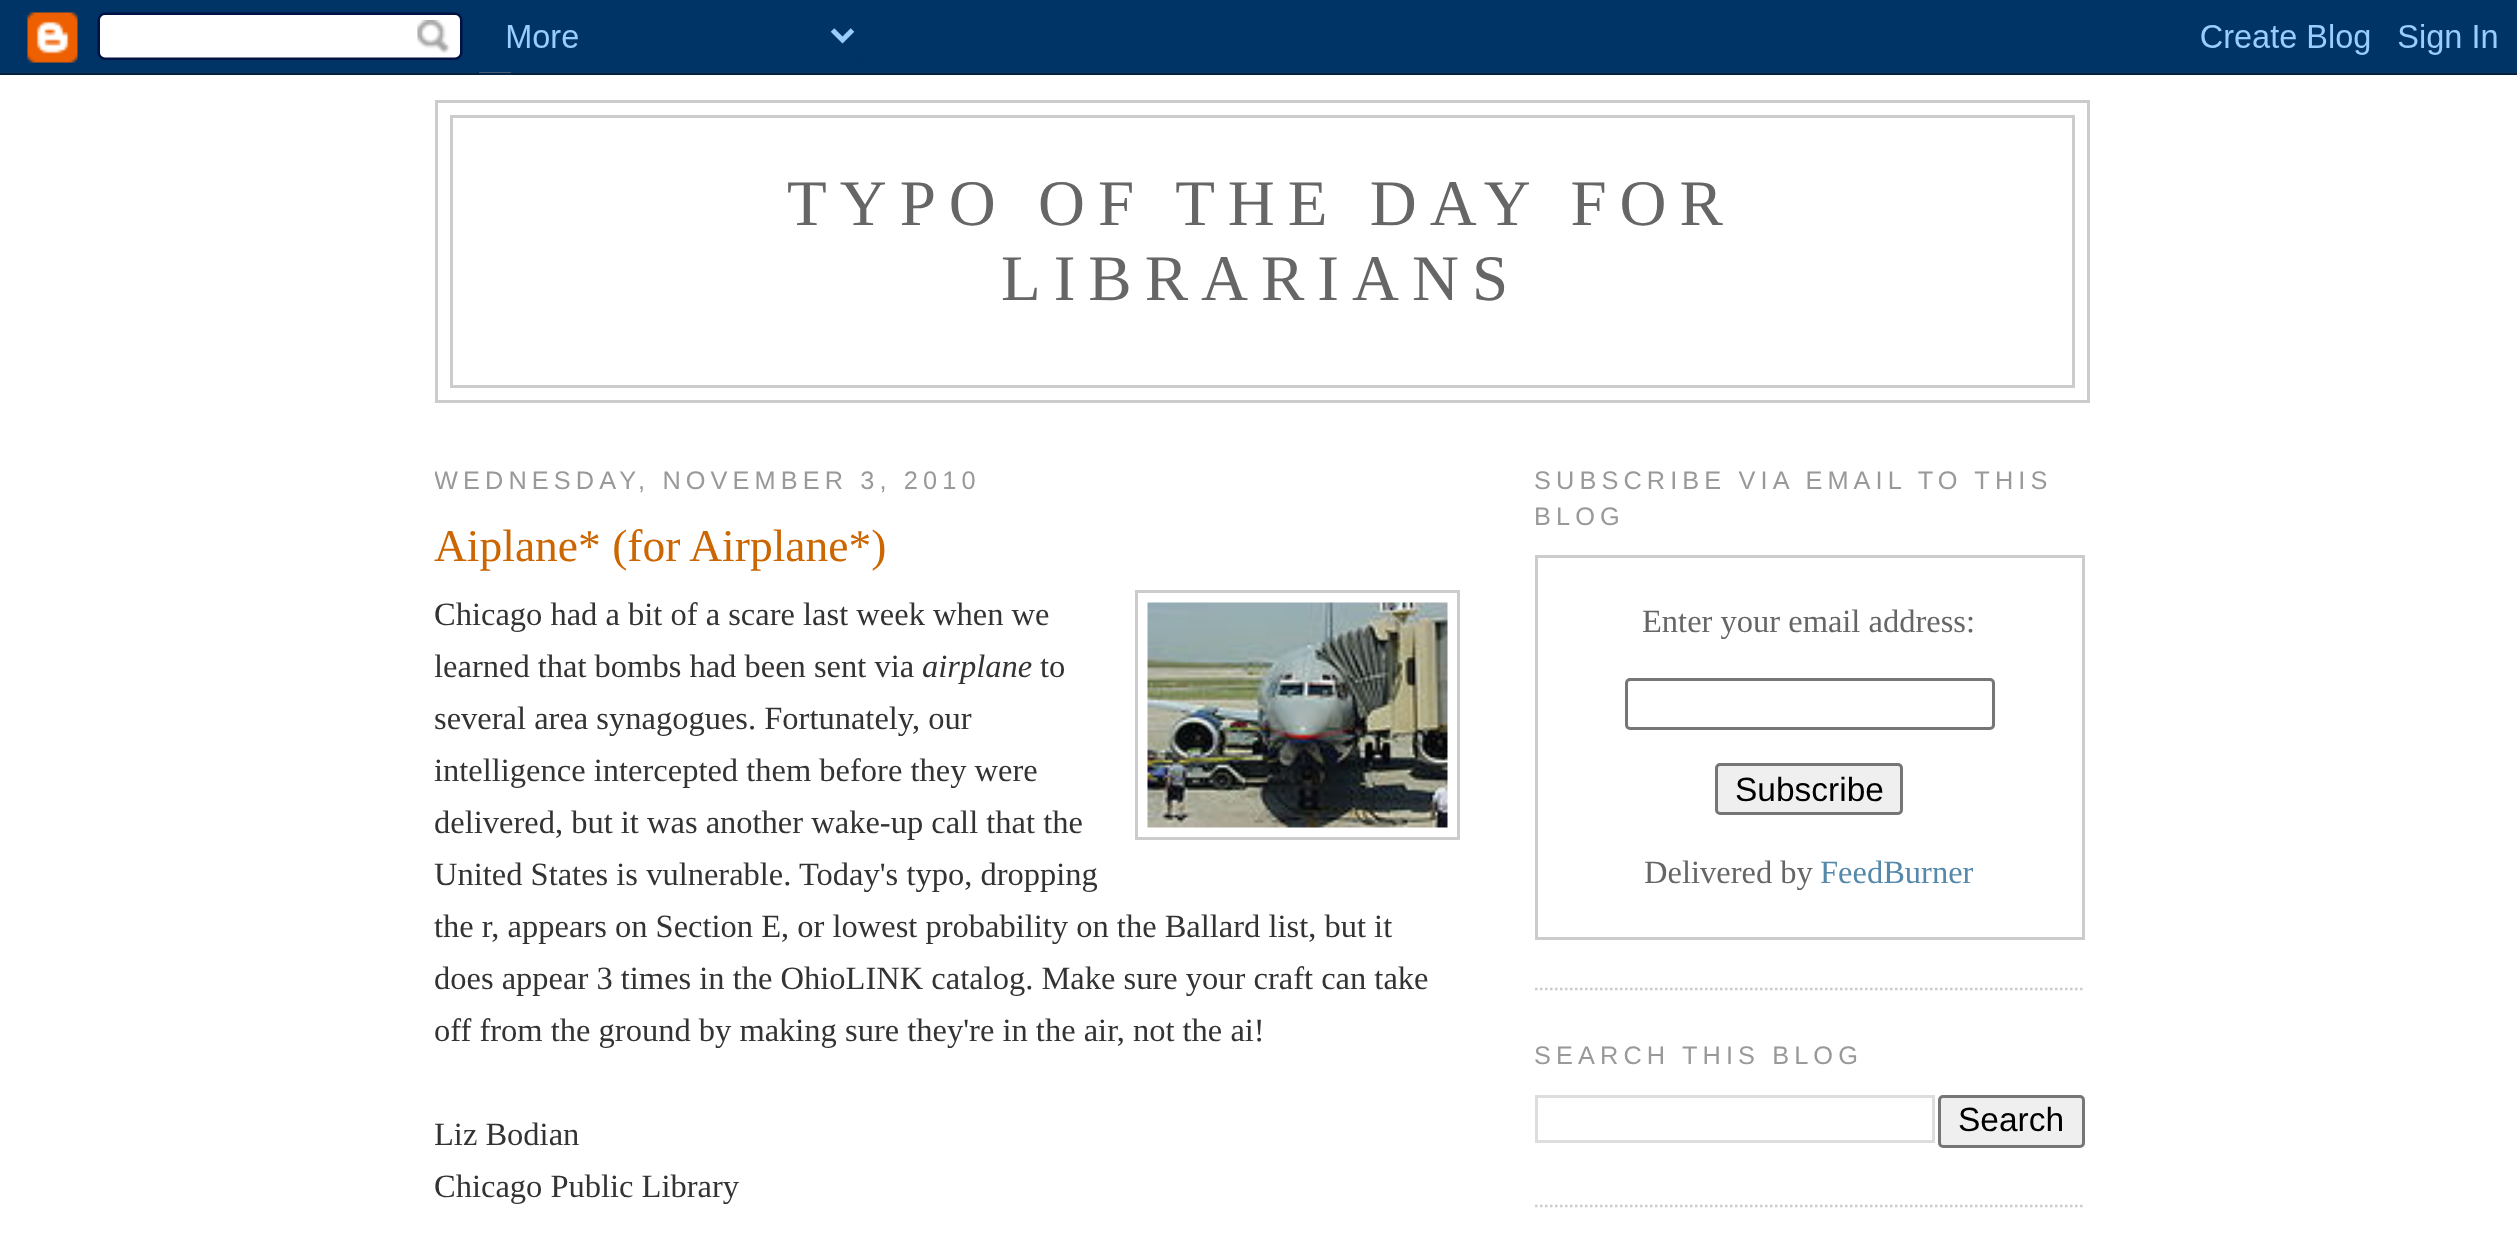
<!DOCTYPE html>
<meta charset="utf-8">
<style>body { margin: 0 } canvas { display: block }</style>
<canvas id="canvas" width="2517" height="1253"></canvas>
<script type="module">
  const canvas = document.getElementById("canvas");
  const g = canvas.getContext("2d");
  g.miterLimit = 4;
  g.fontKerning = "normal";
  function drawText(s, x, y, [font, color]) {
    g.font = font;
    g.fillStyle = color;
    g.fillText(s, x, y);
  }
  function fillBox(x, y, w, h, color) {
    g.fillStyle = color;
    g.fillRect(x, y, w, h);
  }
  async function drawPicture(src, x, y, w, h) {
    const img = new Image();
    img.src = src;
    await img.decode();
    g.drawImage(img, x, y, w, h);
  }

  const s1 = ["65px Liberation Serif", "#666666"];
  const s2 = ["25.35px Liberation Sans", "#999999"];
  const s3 = ["45.5px Liberation Serif", "#CC6600"];
  const s4 = ["32.5px Liberation Serif", "#333333"];
  const s5 = ["italic 32.5px Liberation Serif", "#333333"];
  const s6 = ["32.5px Liberation Serif", "#666666"];
  const s7 = ["33.5px Liberation Sans", "#000000"];
  const s8 = ["32.5px Liberation Serif", "#5588AA"];

  fillBox(0, 0, 2517, 1253, "#FFFFFF");
  await drawPicture("pic1.png", 0, 0, 2517, 75);
  g.strokeStyle = "#CCCCCC";
  g.lineWidth = 3;
  g.strokeRect(436.5, 101.5, 1652, 300);
  g.strokeRect(451.5, 116.5, 1622, 270);
  g.letterSpacing = "13px";
  drawText("TYPO OF THE DAY FOR", 787, 225, s1);
  drawText("LIBRARIANS", 1001, 300, s1);
  g.save();
  g.beginPath();
  g.rect(435, 428, 1025, 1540);
  g.clip();
  g.letterSpacing = "5.1px";
  drawText("WEDNESDAY, NOVEMBER 3, 2010", 434, 489, s2);
  g.restore();
  g.letterSpacing = "0px";
  drawText("Aiplane* (for Airplane*)", 434, 561, s3);
  drawText("Chicago had a bit of a scare last week when we", 434, 625, s4);
  g.strokeRect(1136.5, 591.5, 322, 247);
  await drawPicture("pic2.png", 1147, 602, 301, 226);
  g.save();
  g.beginPath();
  g.rect(435, 428, 1025, 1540);
  g.clip();
  drawText("learned that bombs had been sent via", 434, 677, s4);
  g.restore();
  drawText("airplane", 922, 677, s5);
  drawText("to", 1040, 677, s4);
  drawText("several area synagogues. Fortunately, our", 434, 729, s4);
  drawText("intelligence intercepted them before they were", 434, 781, s4);
  drawText("delivered, but it was another wake-up call that the", 434, 833, s4);
  drawText("United States is vulnerable.", 434, 885, s4);
  drawText("Today's typo, dropping", 799, 885, s4);
  drawText("the r, appears on Section E, or lowest probability on the Ballard list, but it", 434, 937, s4);
  drawText("does appear 3 times in the OhioLINK catalog. Make sure your craft can take", 434, 989, s4);
  drawText("off from the ground by making sure they're in the air, not the ai!", 434, 1041, s4);
  g.save();
  g.beginPath();
  g.rect(435, 428, 1025, 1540);
  g.clip();
  drawText("Liz Bodian", 434, 1145, s4);
  g.restore();
  drawText("Chicago Public Library", 434, 1197, s4);
  g.beginPath();
  g.moveTo(1535, 989);
  g.lineTo(2085, 989);
  g.lineWidth = 2.5;
  g.setLineDash([2.5, 2.5]);
  g.stroke();
  g.letterSpacing = "5.1px";
  drawText("SUBSCRIBE VIA EMAIL TO THIS", 1534, 489, s2);
  drawText("BLOG", 1534, 525, s2);
  g.lineWidth = 3;
  g.setLineDash([]);
  g.strokeRect(1536.5, 556.5, 547, 382);
  g.letterSpacing = "0px";
  drawText("Enter your email address:", 1642, 632, s6);
  g.beginPath();
  g.roundRect(1626.5, 679.5, 367, 49, 3.5);
  g.strokeStyle = "#767676";
  g.stroke();
  g.fillStyle = "#EFEFEF";
  g.beginPath();
  g.roundRect(1716.5, 764.5, 185, 49, 3.5);
  g.fill();
  g.stroke();
  drawText("Subscribe", 1735, 801, s7);
  drawText("Delivered by", 1644, 883, s6);
  drawText("FeedBurner", 1820, 883, s8);
  g.beginPath();
  g.moveTo(1535, 1206);
  g.lineTo(2085, 1206);
  g.strokeStyle = "#CCCCCC";
  g.lineWidth = 2.5;
  g.setLineDash([2.5, 2.5]);
  g.stroke();
  g.letterSpacing = "5.1px";
  drawText("SEARCH THIS BLOG", 1534, 1064, s2);
  g.strokeStyle = "#DDDDDD";
  g.lineWidth = 3;
  g.setLineDash([]);
  g.strokeRect(1536.5, 1096.5, 397, 45);
  g.fillStyle = "#EFEFEF";
  g.beginPath();
  g.roundRect(1939.5, 1096.5, 144, 50, 3.5);
  g.fill();
  g.strokeStyle = "#767676";
  g.stroke();
  g.letterSpacing = "0px";
  drawText("Search", 1958, 1131, s7);
</script>
